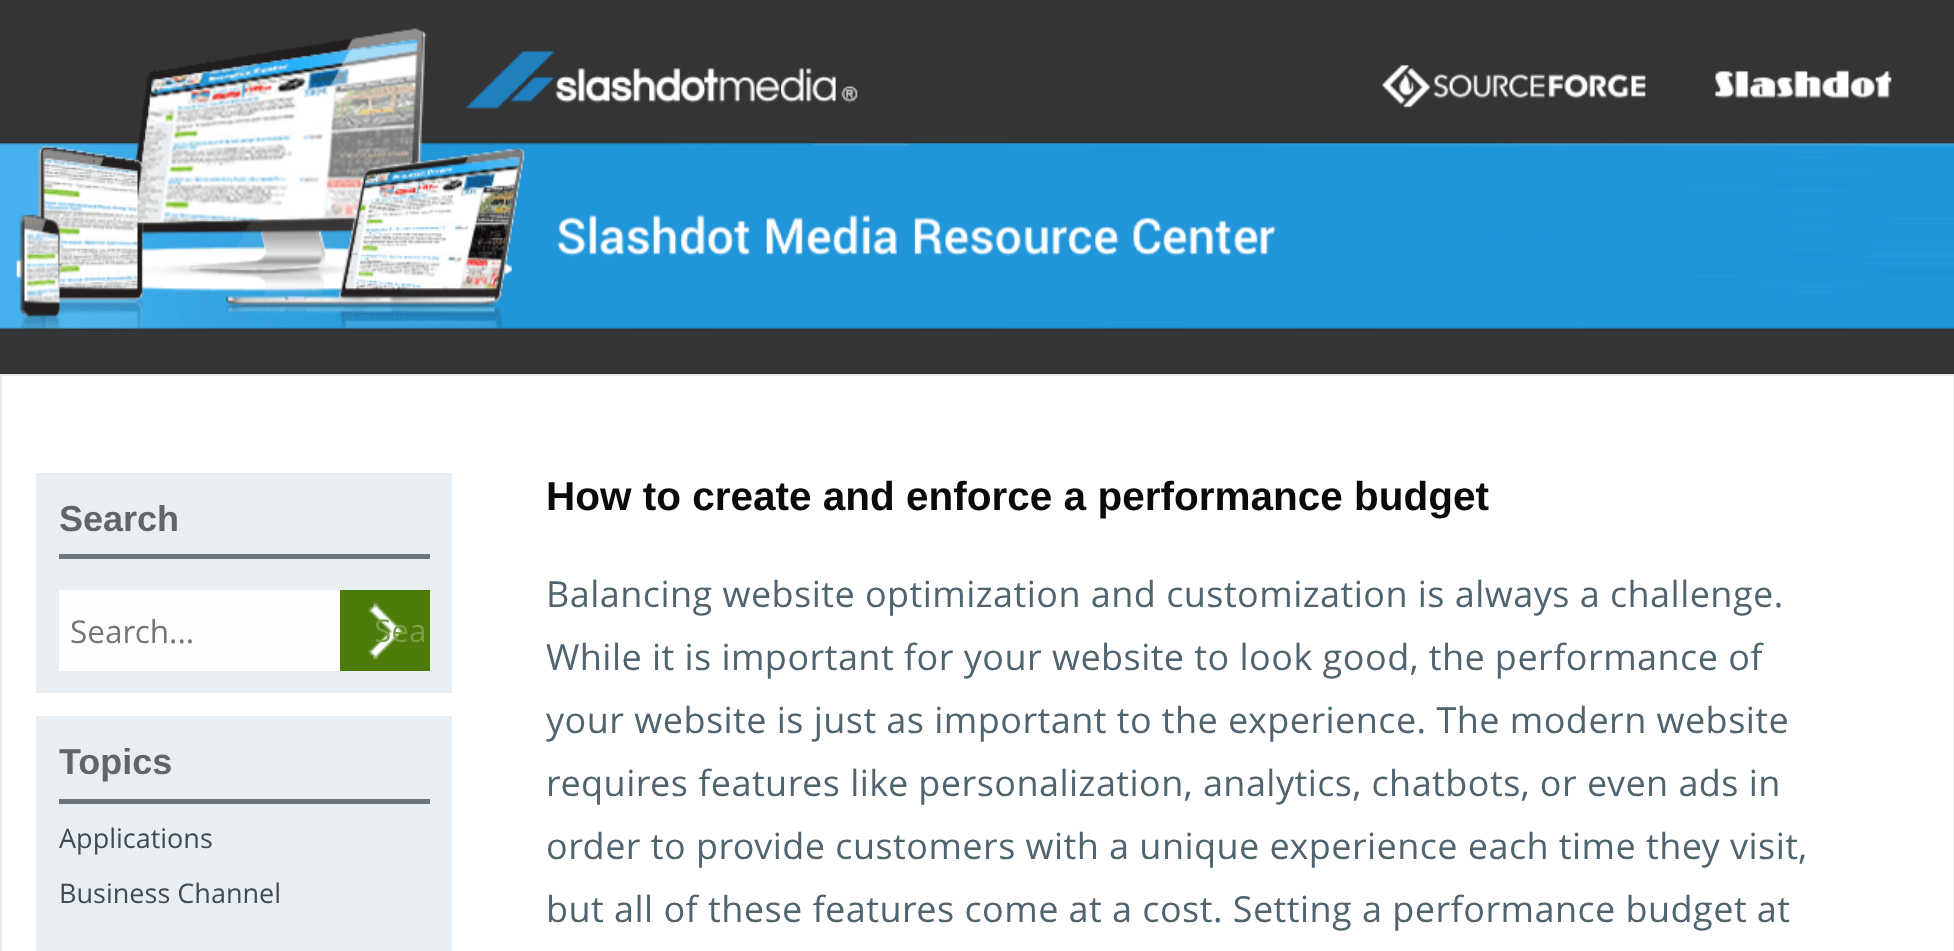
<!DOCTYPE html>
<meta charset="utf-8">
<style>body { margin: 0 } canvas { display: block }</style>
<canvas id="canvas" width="1954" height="951"></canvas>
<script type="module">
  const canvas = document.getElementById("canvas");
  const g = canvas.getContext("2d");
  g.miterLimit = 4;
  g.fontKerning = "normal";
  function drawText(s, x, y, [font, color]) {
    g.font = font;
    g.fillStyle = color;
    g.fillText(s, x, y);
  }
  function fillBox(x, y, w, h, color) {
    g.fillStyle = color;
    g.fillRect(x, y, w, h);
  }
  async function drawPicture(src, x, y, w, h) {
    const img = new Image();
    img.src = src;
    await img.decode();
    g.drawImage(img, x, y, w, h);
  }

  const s1 = ["bold 36px Liberation Sans", "#5F6568"];
  const s2 = ["31.5px Open Sans", "#767676"];
  const s3 = ["31.5px Open Sans", "#7A9D48"];
  const s4 = ["27px Open Sans", "#414A51"];
  const s5 = ["bold 40.5px Liberation Sans", "#0A0A0A"];
  const s6 = ["36px Open Sans", "#506470"];

  fillBox(0, 0, 1954, 951, "#333436");
  await drawPicture("pic1.png", 0, 28, 1954, 301);
  g.fillStyle = "#FFFFFF";
  g.beginPath();
  g.rect(1, 375, 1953, 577);
  g.fill();
  g.strokeStyle = "#E9E9E9";
  g.lineWidth = 2;
  g.stroke();
  fillBox(36, 473, 416, 220, "#E8EEF1");
  fillBox(59, 554, 371, 5, "#6D757A");
  drawText("Search", 59, 531, s1);
  fillBox(59, 590, 281, 81, "#FEFEFE");
  drawText("Search...", 70, 643, s2);
  fillBox(340, 590, 90, 81, "#4C7B0A");
  await drawPicture("pic2.png", 368, 602, 36, 58);
  drawText("Sea", 374, 642, s3);
  fillBox(36, 716, 416, 235, "#E8EEF1");
  fillBox(59, 799, 371, 5, "#6D757A");
  drawText("Topics", 59, 774, s1);
  drawText("Applications", 59, 848, s4);
  drawText("Business Channel", 59, 903, s4);
  drawText("How to create and enforce a performance budget", 546, 510, s5);
  g.letterSpacing = "0.45px";
  drawText("Balancing website optimization and customization is always a challenge.", 546, 607, s6);
  drawText("While it is important for your website to look good, the performance of", 546, 670, s6);
  drawText("your website is just as important to the experience. The modern website", 546, 733, s6);
  drawText("requires features like personalization, analytics, chatbots, or even ads in", 546, 796, s6);
  drawText("order to provide customers with a unique experience each time they visit,", 546, 859, s6);
  drawText("but all of these features come at a cost. Setting a performance budget at", 546, 922, s6);
</script>
